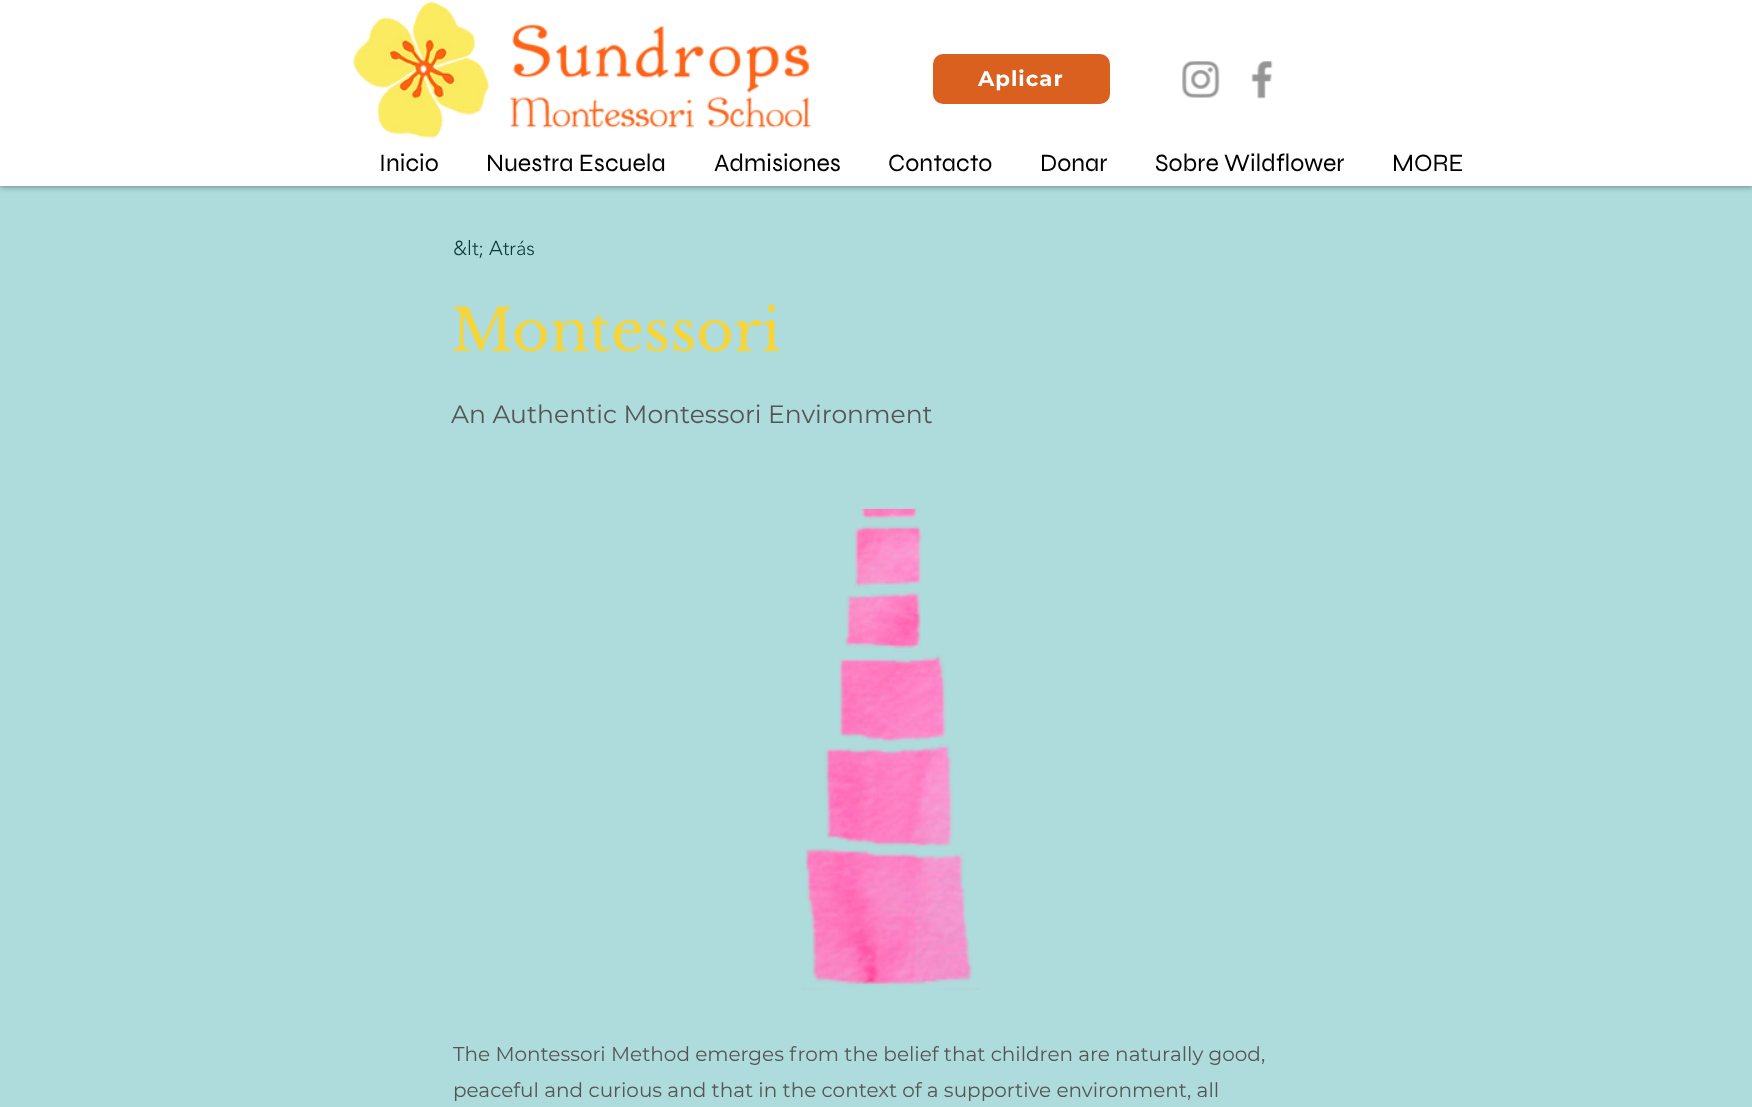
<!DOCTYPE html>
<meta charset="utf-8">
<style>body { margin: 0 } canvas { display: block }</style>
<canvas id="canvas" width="1752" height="1107"></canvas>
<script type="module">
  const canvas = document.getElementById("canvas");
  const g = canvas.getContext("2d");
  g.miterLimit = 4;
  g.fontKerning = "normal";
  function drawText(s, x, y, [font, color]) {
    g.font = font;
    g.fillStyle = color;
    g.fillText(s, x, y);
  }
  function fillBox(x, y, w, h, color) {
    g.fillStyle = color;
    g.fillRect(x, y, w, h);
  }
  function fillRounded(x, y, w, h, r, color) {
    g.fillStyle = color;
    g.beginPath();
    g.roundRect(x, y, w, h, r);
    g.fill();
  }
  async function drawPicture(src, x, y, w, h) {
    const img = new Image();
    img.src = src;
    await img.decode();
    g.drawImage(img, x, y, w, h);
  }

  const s1 = ["bold 21.25px Montserrat", "#FFFFFF"];
  const s2 = ["25px Syne", "#000000"];
  const s3 = ["300 20px 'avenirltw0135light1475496'", "#0A3838"];
  const s4 = ["57.5px Libre Baskerville", "#F7D538"];
  const s5 = ["25px Montserrat", "#555555"];
  const s6 = ["20px Montserrat", "#555555"];

  fillBox(0, 0, 1752, 1107, "#AEDBDB");
  g.fillStyle = "rgba(0, 0, 0, 0.5)";
  g.filter = "blur(3px)";
  g.beginPath();
  g.rect(0, 0, 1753, 186);
  g.fill();
  g.filter = "none";
  fillBox(0, 0, 1752, 186, "#FFFFFF");
  await drawPicture("pic1.png", 352, 1, 460, 137);
  fillRounded(933, 54, 177, 50, 10, "#D9601E");
  g.letterSpacing = "1px";
  drawText("Aplicar", 978, 86, s1);
  await drawPicture("pic2.png", 1182, 61, 38, 37);
  await drawPicture("pic3.png", 1251, 61, 22, 38);
  g.letterSpacing = "0px";
  drawText("Inicio", 379, 171, s2);
  drawText("Nuestra Escuela", 486, 171, s2);
  drawText("Admisiones", 714, 171, s2);
  drawText("Contacto", 888, 171, s2);
  drawText("Donar", 1040, 171, s2);
  drawText("Sobre Wildflower", 1155, 171, s2);
  drawText("MORE", 1392, 171, s2);
  drawText("&lt; Atrás", 453, 255, s3);
  drawText("Montessori", 451, 351, s4);
  drawText("An Authentic Montessori Environment", 451, 423, s5);
  await drawPicture("pic4.png", 802, 508, 178, 482);
  drawText("The Montessori Method emerges from the belief that children are naturally good,", 453, 1061, s6);
  drawText("peaceful and curious and that in the context of a supportive environment, all", 453, 1097, s6);
</script>
